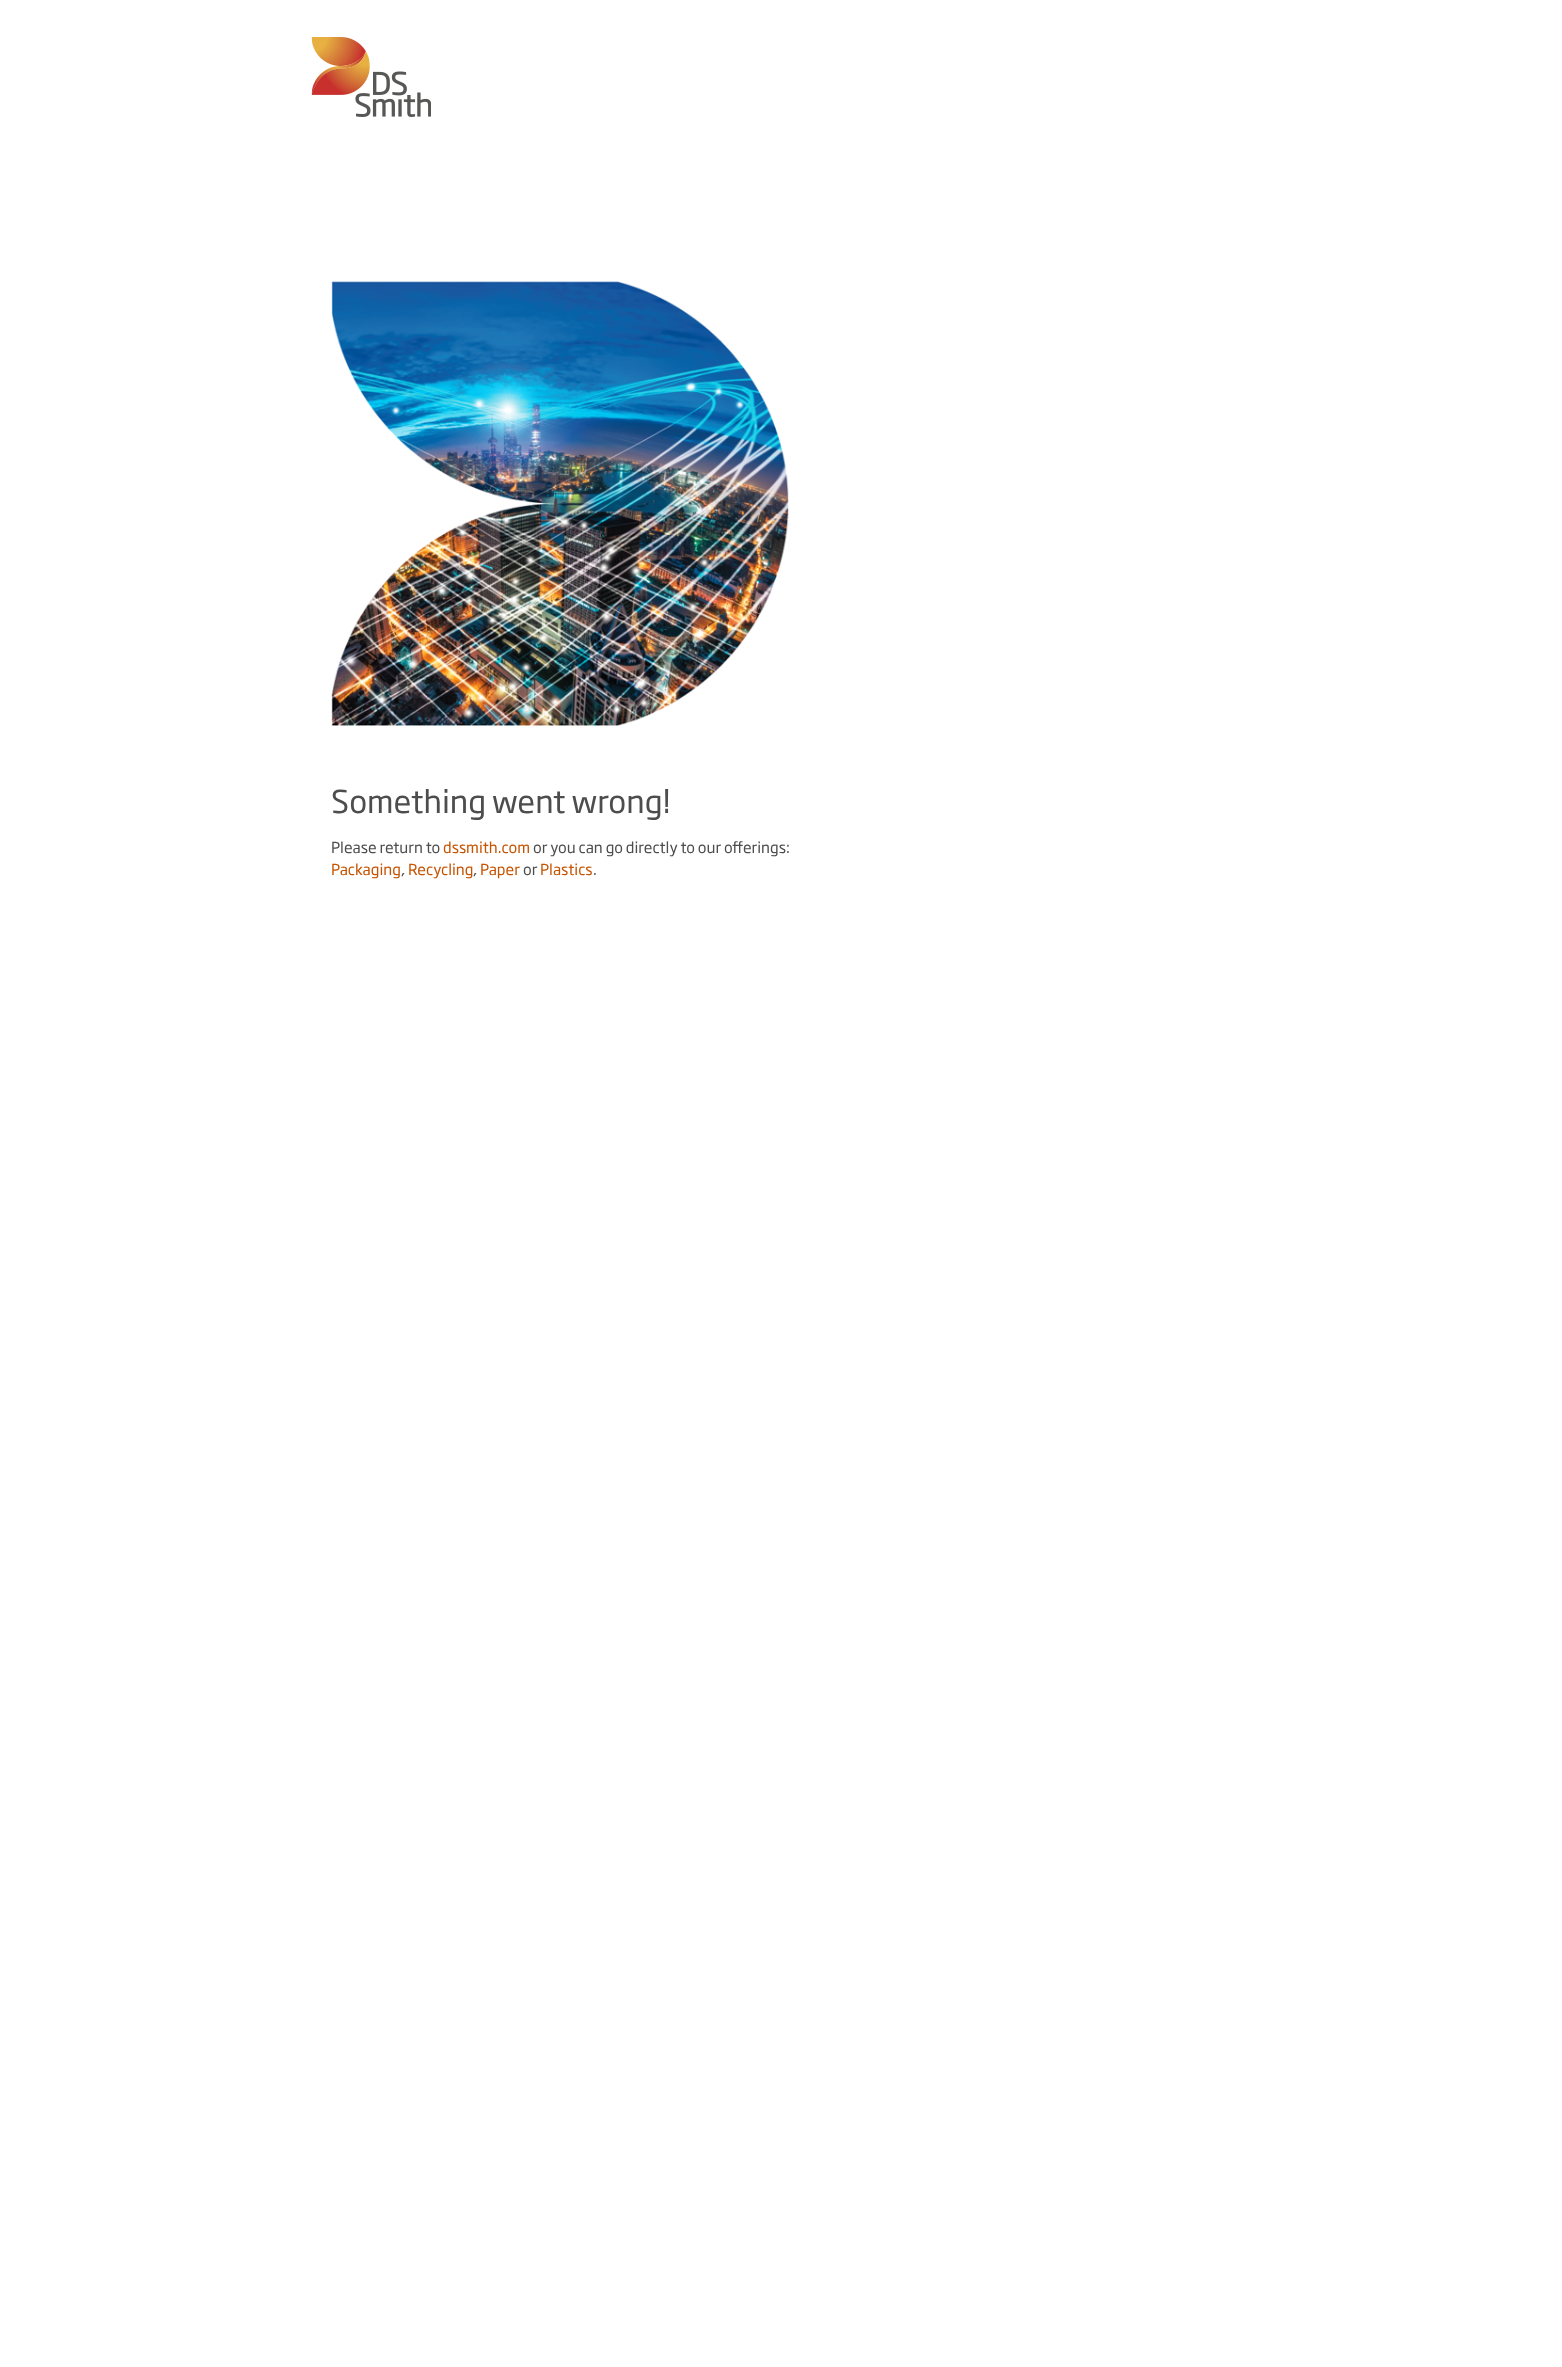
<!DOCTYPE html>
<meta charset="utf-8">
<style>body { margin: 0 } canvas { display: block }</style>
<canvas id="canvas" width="1562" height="2367"></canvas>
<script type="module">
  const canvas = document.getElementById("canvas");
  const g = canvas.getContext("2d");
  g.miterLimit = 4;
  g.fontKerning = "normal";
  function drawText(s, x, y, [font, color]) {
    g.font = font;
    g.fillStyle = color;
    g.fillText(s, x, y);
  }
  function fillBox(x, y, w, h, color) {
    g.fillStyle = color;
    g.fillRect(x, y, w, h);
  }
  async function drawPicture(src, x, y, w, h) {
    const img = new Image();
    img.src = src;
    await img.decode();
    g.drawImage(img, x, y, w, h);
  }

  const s1 = ["31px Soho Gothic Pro", "#4D4D4D"];
  const s2 = ["15px Soho Gothic Pro", "#4D4D4D"];
  const s3 = ["15px Soho Gothic Pro", "#C75300"];

  fillBox(0, 0, 1562, 2367, "#FFFFFF");
  await drawPicture("pic1.png", 311, 37, 120, 80);
  await drawPicture("pic2.png", 331, 281, 458, 445);
  drawText("Something went wrong!", 331, 813, s1);
  drawText("Please return to", 331, 853, s2);
  drawText("dssmith.com", 443, 853, s3);
  drawText("or you can go directly to our offerings:", 533, 853, s2);
  drawText("Packaging", 331, 875, s3);
  drawText(",", 401, 875, s2);
  drawText("Recycling", 408, 875, s3);
  drawText(",", 473, 875, s2);
  drawText("Paper", 480, 875, s3);
  drawText("or", 523, 875, s2);
  drawText("Plastics", 540, 875, s3);
  drawText(".", 593, 875, s2);
</script>
